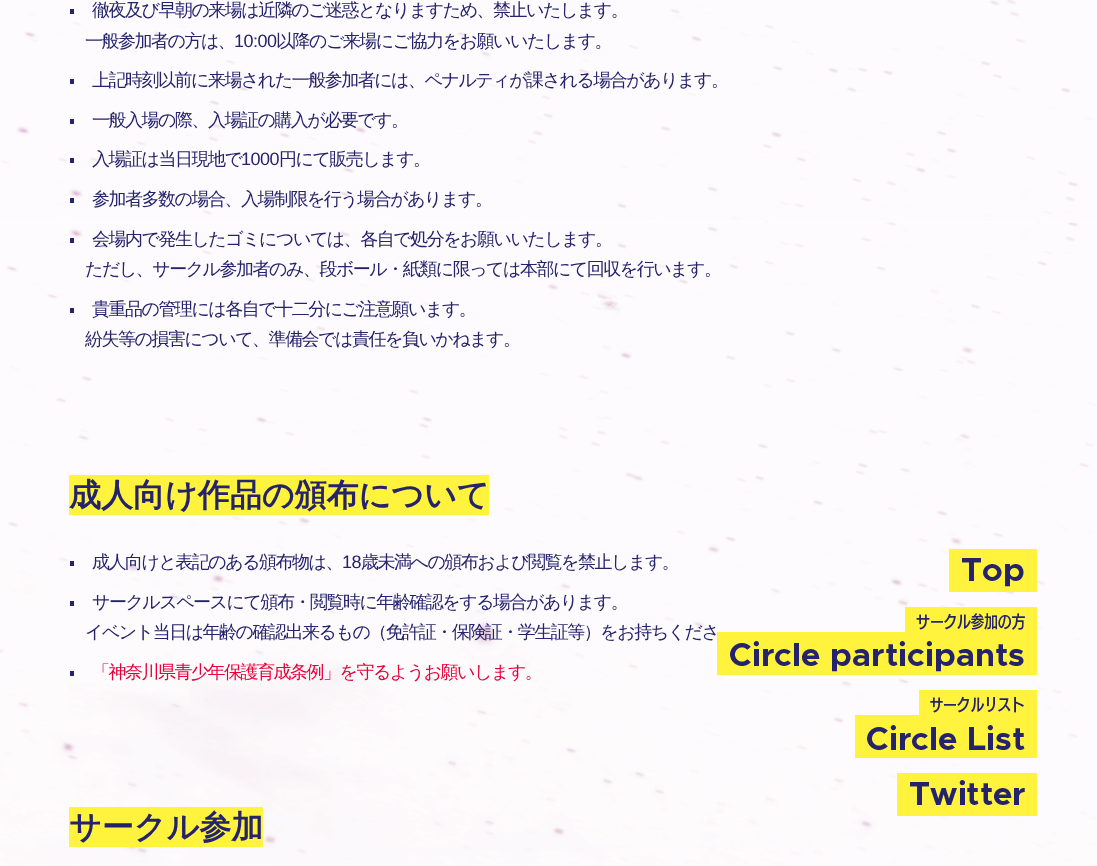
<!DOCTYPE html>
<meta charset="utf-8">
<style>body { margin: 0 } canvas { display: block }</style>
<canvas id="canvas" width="1097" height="866"></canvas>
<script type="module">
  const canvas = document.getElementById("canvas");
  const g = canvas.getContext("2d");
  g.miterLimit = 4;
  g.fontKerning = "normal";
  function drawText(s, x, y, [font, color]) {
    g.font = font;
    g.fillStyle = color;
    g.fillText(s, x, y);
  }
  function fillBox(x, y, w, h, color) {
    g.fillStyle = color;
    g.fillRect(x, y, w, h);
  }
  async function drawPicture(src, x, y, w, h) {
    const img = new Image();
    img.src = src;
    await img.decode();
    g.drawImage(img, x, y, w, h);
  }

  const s1 = ["500 18px WenQuanYi Zen Hei", "#24236B"];
  const s2 = ["18px Liberation Sans", "#24236B"];
  const s3 = ["bold 32px WenQuanYi Zen Hei", "#24236B"];
  const s4 = ["500 18px WenQuanYi Zen Hei", "#E8003A"];

  fillBox(0, 0, 1097, 866, "#FFFFFF");
  await drawPicture("pic1.png", 0, 0, 1097, 866);
  fillBox(70, 9, 4, 5, "#24236B");
  g.letterSpacing = "-1.5px";
  drawText("徹夜及び早朝の来場は近隣のご迷惑となりますため、禁止いたします。", 92, 16, s1);
  drawText("一般参加者の方は、", 85, 47, s1);
  g.letterSpacing = "-0.5px";
  drawText("10:00", 234, 47, s2);
  g.letterSpacing = "-1.5px";
  drawText("以降のご来場にご協力をお願いいたします。", 276, 47, s1);
  fillBox(70, 79, 4, 5, "#24236B");
  drawText("上記時刻以前に来場された一般参加者には、ペナルティが課される場合があります。", 92, 86, s1);
  fillBox(70, 119, 4, 5, "#24236B");
  drawText("一般入場の際、入場証の購入が必要です。", 92, 126, s1);
  fillBox(70, 158, 4, 5, "#24236B");
  drawText("入場証は当日現地で", 92, 165, s1);
  g.letterSpacing = "-0.5px";
  drawText("1000", 241, 165, s2);
  g.letterSpacing = "-1.5px";
  drawText("円にて販売します。", 279, 165, s1);
  fillBox(70, 198, 4, 5, "#24236B");
  drawText("参加者多数の場合、入場制限を行う場合があります。", 92, 205, s1);
  fillBox(70, 238, 4, 5, "#24236B");
  drawText("会場内で発生したゴミについては、各自で処分をお願いいたします。", 92, 245, s1);
  drawText("ただし、サークル参加者のみ、段ボール・紙類に限っては本部にて回収を行います。", 85, 275, s1);
  fillBox(70, 308, 4, 5, "#24236B");
  drawText("貴重品の管理には各自で十二分にご注意願います。", 92, 315, s1);
  drawText("紛失等の損害について、準備会では責任を負いかねます。", 85, 345, s1);
  fillBox(69, 475, 420, 40, "#FFF33D");
  g.letterSpacing = "0px";
  drawText("成人向け作品の頒布について", 69, 506, s3);
  fillBox(70, 561, 4, 5, "#24236B");
  g.letterSpacing = "-1.5px";
  drawText("成人向けと表記のある頒布物は、", 92, 568, s1);
  g.letterSpacing = "-0.5px";
  drawText("18", 342, 568, s2);
  g.letterSpacing = "-1.5px";
  drawText("歳未満への頒布および閲覧を禁止します。", 361, 568, s1);
  fillBox(70, 601, 4, 5, "#24236B");
  drawText("サークルスペースにて頒布・閲覧時に年齢確認をする場合があります。", 92, 608, s1);
  drawText("イベント当日は年齢の確認出来るもの（免許証・保険証・学生証等）をお持ちくださ", 85, 638, s1);
  fillBox(70, 671, 4, 5, "#24236B");
  drawText("「神奈川県青少年保護育成条例」を守るようお願いします。", 92, 678, s4);
  fillBox(69, 807, 194, 40, "#FFF33D");
  g.letterSpacing = "0px";
  drawText("サークル参加", 69, 838, s3);
  await drawPicture("pic2.png", 949, 549, 88, 43);
  await drawPicture("pic3.png", 717, 607, 320, 68);
  await drawPicture("pic4.png", 855, 690, 182, 68);
  await drawPicture("pic5.png", 897, 773, 140, 43);
</script>
